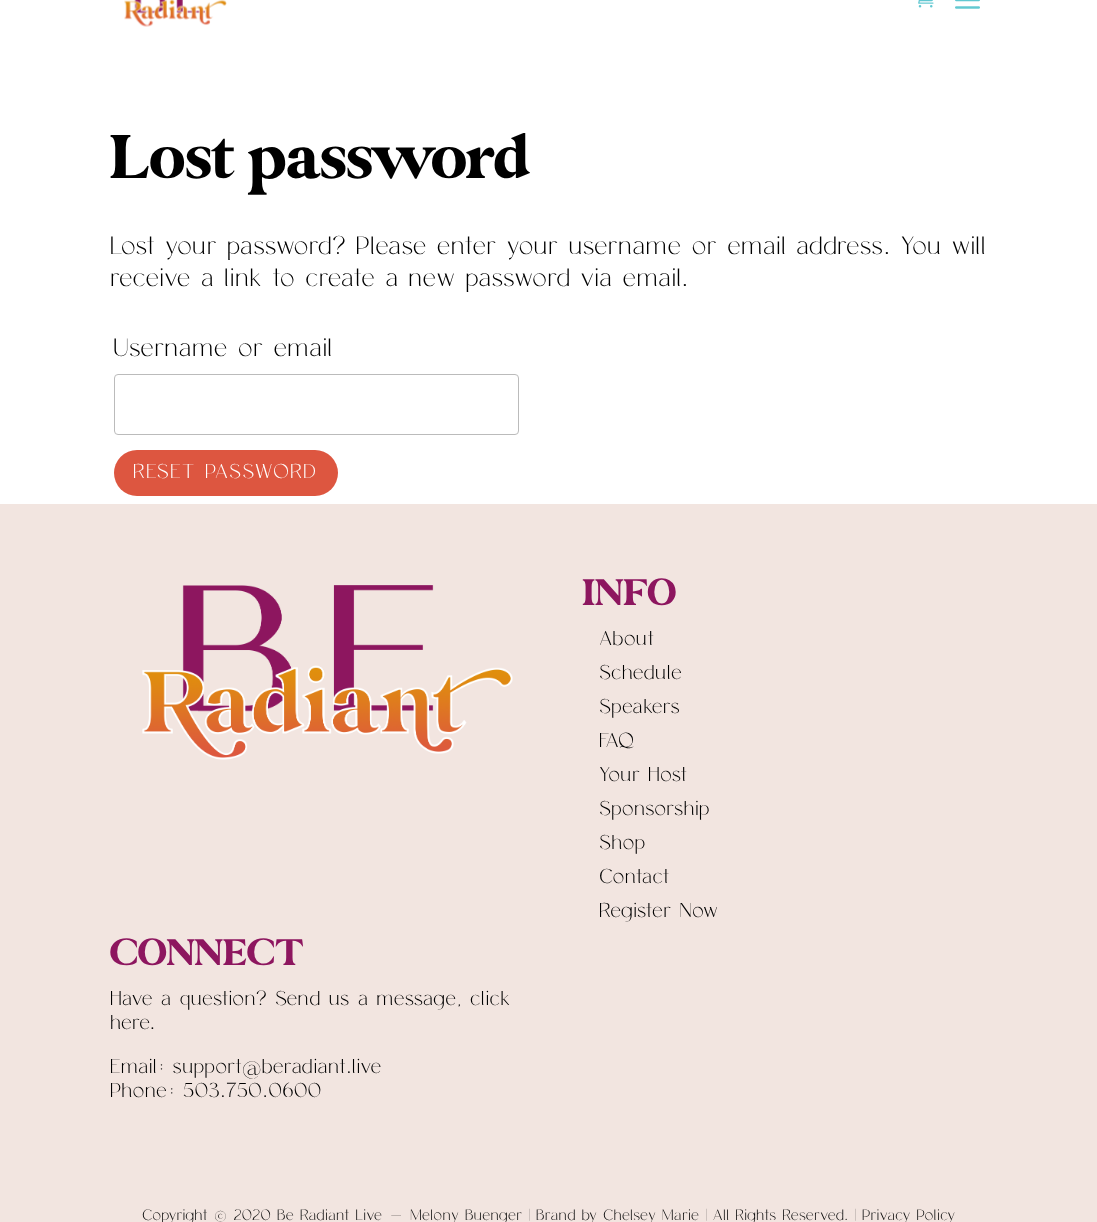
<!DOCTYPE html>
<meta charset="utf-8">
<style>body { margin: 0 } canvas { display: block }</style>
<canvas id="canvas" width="1097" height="1222"></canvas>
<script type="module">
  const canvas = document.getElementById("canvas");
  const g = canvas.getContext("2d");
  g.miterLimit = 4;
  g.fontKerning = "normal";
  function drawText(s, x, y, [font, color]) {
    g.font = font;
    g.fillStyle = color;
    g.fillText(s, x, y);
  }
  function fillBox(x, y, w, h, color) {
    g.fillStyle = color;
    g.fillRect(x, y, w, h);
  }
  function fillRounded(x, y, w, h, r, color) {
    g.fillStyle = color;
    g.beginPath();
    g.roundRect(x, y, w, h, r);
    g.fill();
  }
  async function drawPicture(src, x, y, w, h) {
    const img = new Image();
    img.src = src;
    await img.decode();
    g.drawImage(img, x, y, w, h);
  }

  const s1 = ["68.75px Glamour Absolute", "#000000"];
  const s2 = ["25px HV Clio", "#000000"];
  const s3 = ["20px HV Clio", "#FFFFFF"];
  const s4 = ["41.25px Glamour Absolute", "#8D165F"];
  const s5 = ["20px HV Clio", "#000000"];
  const s6 = ["15px HV Clio", "#0A0A0A"];

  fillBox(0, 0, 1097, 1222, "#FFFFFF");
  await drawPicture("pic1.png", 124, 0, 103, 27);
  await drawPicture("pic2.png", 918, 0, 16, 8);
  await drawPicture("pic3.png", 955, 0, 25, 9);
  drawText("Lost password", 110, 178, s1);
  drawText("Lost your password? Please enter your username or email address. You will", 110, 254, s2);
  drawText("receive a link to create a new password via email.", 110, 286, s2);
  drawText("Username or email", 113, 356, s2);
  g.beginPath();
  g.roundRect(114.5, 374.5, 404, 60, 3.5);
  g.strokeStyle = "#BBBBBB";
  g.stroke();
  fillRounded(114, 450, 224, 46, 23, "#DD5640");
  g.letterSpacing = "1.25px";
  drawText("RESET PASSWORD", 133, 478, s3);
  fillBox(0, 504, 1097, 718, "#F2E5E0");
  await drawPicture("pic4.png", 142, 585, 371, 175);
  g.letterSpacing = "0px";
  drawText("INFO", 582, 605, s4);
  drawText("About", 599, 645, s5);
  drawText("Schedule", 599, 679, s5);
  drawText("Speakers", 599, 713, s5);
  drawText("FAQ", 599, 747, s5);
  drawText("Your Host", 599, 781, s5);
  drawText("Sponsorship", 599, 815, s5);
  drawText("Shop", 599, 849, s5);
  drawText("Contact", 599, 883, s5);
  drawText("Register Now", 599, 917, s5);
  drawText("CONNECT", 110, 965, s4);
  drawText("Have a question? Send us a message, click", 110, 1005, s5);
  drawText("here.", 110, 1029, s5);
  drawText("Email: support@beradiant.live", 110, 1073, s5);
  drawText("Phone: 503.750.0600", 110, 1097, s5);
  drawText("Copyright © 2020 Be Radiant Live - Melony Buenger | Brand by Chelsey Marie | All Rights Reserved. | Privacy Policy", 142, 1220, s6);
</script>
